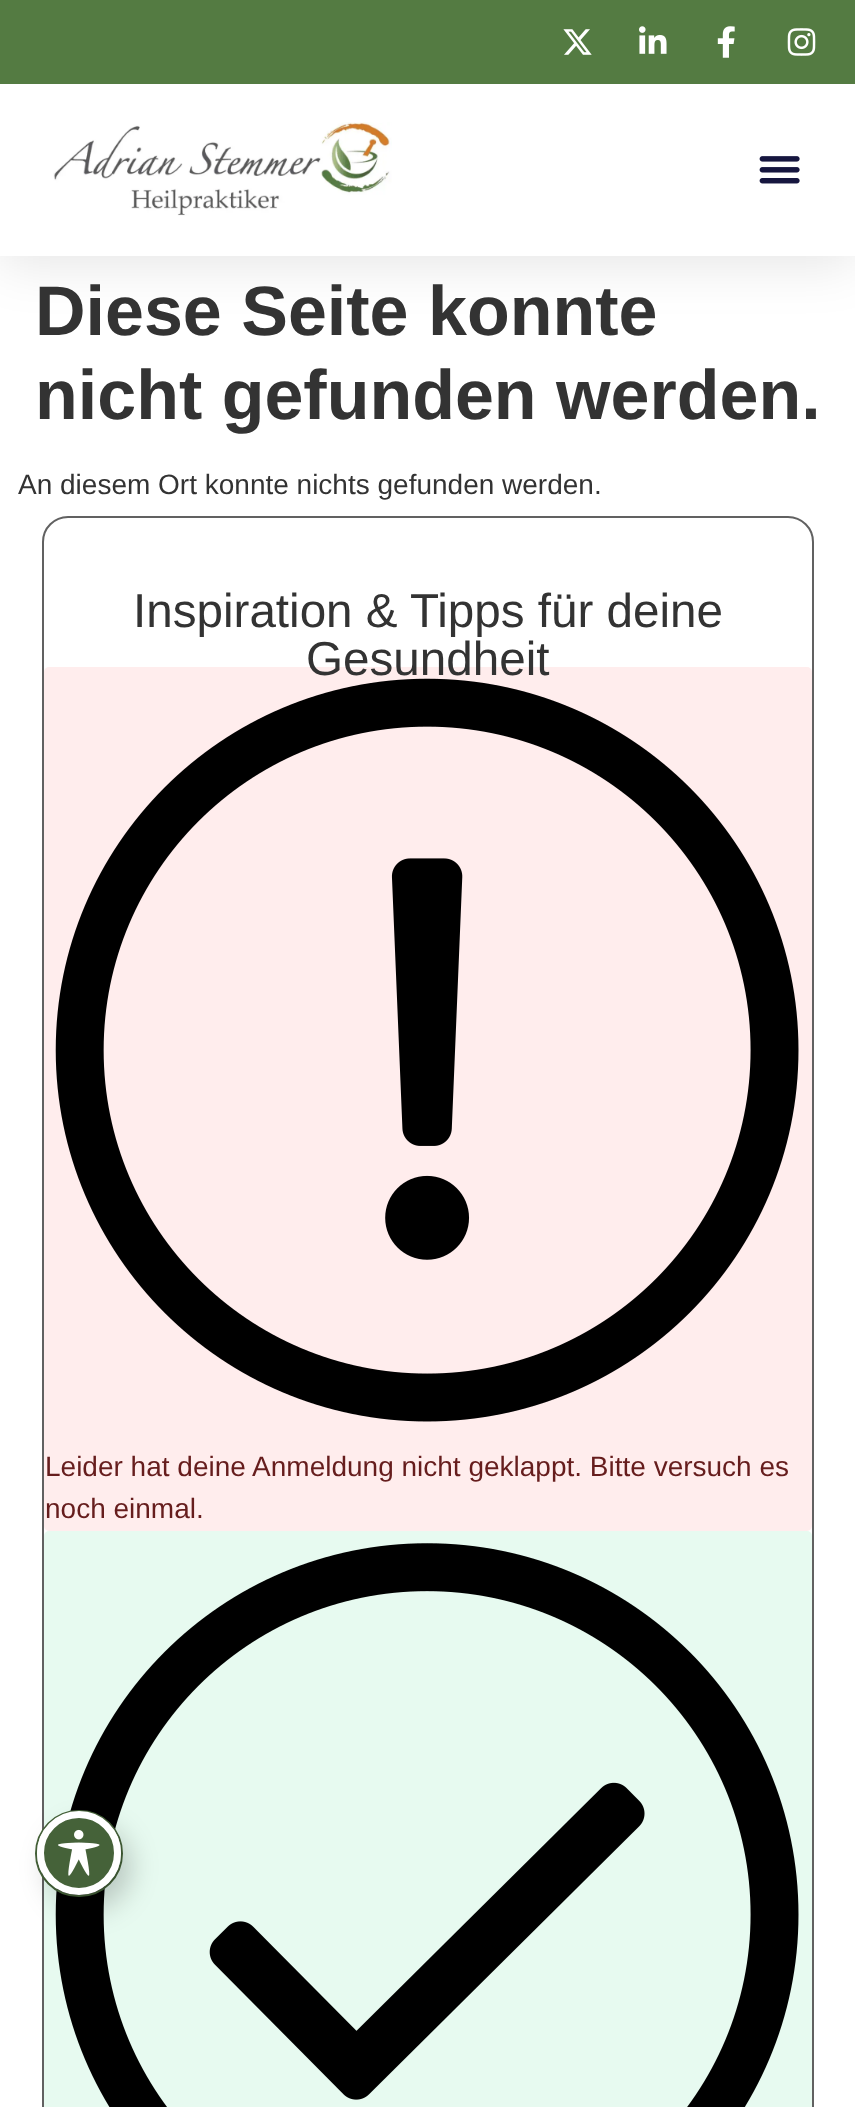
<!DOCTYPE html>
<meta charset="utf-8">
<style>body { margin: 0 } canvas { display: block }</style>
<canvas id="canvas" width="855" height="2107"></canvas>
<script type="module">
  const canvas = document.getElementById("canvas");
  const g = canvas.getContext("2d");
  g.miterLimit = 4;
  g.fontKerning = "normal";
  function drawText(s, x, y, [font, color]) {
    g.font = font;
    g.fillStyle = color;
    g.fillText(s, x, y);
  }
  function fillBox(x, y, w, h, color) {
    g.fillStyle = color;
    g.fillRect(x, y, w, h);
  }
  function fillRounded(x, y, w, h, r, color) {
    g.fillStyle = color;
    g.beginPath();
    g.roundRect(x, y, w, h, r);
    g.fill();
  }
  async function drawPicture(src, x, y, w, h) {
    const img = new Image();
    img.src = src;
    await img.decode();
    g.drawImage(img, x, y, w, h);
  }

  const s1 = ["bold 70px Liberation Sans", "#333333"];
  const s2 = ["28px Liberation Sans", "#333333"];
  const s3 = ["47.6px Liberation Sans", "#333333"];
  const s4 = ["28px Liberation Sans", "#661D1D"];

  fillBox(0, 0, 855, 2107, "#FFFFFF");
  g.fillStyle = "rgba(0, 0, 0, 0.1)";
  g.filter = "blur(26px)";
  g.beginPath();
  g.rect(0, 9, 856, 255);
  g.fill();
  g.filter = "none";
  fillBox(0, 0, 855, 84, "#547B42");
  await drawPicture("pic1.png", 563, 29, 29, 26);
  await drawPicture("pic2.png", 639, 26, 28, 28);
  await drawPicture("pic3.png", 717, 26, 18, 32);
  await drawPicture("pic4.png", 787, 28, 29, 28);
  fillBox(0, 84, 855, 172, "#FFFFFF");
  await drawPicture("pic5.png", 53, 122, 339, 94);
  await drawPicture("pic6.png", 759, 156, 41, 28);
  drawText("Diese Seite konnte", 35, 335, s1);
  drawText("nicht gefunden werden.", 35, 419, s1);
  drawText("An diesem Ort konnte nichts gefunden werden.", 18, 494, s2);
  g.beginPath();
  g.roundRect(43, 517, 770, 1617, 25);
  g.strokeStyle = "#616161";
  g.lineWidth = 2;
  g.stroke();
  drawText("Inspiration & Tipps für deine", 133, 627, s3);
  fillRounded(44, 667, 768, 864, 5, "#FFEDED");
  drawText("Gesundheit", 306, 675, s3);
  await drawPicture("pic7.png", 55, 678, 744, 744);
  drawText("Leider hat deine Anmeldung nicht geklappt. Bitte versuch es", 45, 1476, s4);
  drawText("noch einmal.", 45, 1518, s4);
  fillRounded(44, 1531, 768, 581, 5, "#E7FAF0");
  await drawPicture("pic8.png", 55, 1543, 744, 564);
  g.beginPath();
  g.roundRect(36, 1811, 86, 85, 42.5);
  g.strokeStyle = "#456239";
  g.stroke();
  g.fillStyle = "rgba(0, 0, 0, 0.2)";
  g.filter = "blur(14px)";
  g.beginPath();
  g.roundRect(47, 1825, 84, 84, 42);
  g.fill();
  g.filter = "none";
  g.fillStyle = "#456239";
  g.beginPath();
  g.arc(79, 1853, 38.5, 0, Math.PI * 2);
  g.fill();
  g.strokeStyle = "#FFFFFF";
  g.lineWidth = 7;
  g.stroke();
  await drawPicture("pic9.png", 58, 1829, 42, 47);
</script>
